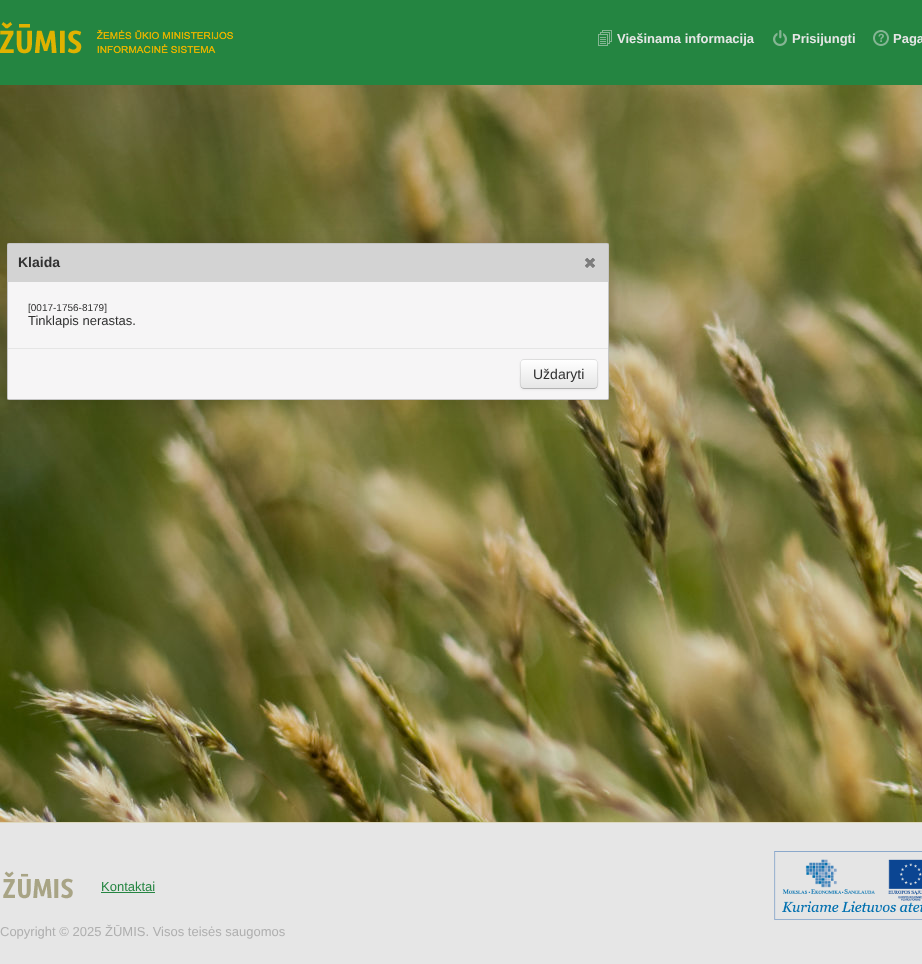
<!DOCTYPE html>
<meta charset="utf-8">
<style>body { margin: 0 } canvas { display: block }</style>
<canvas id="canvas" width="922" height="964"></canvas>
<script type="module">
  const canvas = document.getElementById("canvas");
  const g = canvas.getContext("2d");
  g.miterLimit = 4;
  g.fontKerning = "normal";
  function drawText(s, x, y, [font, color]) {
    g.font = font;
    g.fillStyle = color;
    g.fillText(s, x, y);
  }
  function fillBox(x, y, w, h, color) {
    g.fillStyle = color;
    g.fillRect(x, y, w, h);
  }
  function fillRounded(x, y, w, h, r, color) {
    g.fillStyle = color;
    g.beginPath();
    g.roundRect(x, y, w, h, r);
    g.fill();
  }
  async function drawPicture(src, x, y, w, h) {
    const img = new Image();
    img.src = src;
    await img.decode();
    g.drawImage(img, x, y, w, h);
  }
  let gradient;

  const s1 = ["bold 13px Liberation Sans", "#E6E6E6"];
  const s2 = ["13px Liberation Sans", "#248541"];
  const s3 = ["13px Liberation Sans", "#AFAFAF"];
  const s4 = ["bold 14px Liberation Sans", "#303030"];
  const s5 = ["10px Liberation Sans", "#303030"];
  const s6 = ["13px Liberation Sans", "#303030"];
  const s7 = ["14px Liberation Sans", "#303030"];

  fillBox(0, 0, 922, 964, "#FFFFFF");
  await drawPicture("pic1.png", 0, 85, 922, 737);
  fillBox(0, 0, 922, 85, "#248541");
  await drawPicture("pic2.png", 0, 22, 233, 32);
  await drawPicture("pic3.png", 598, 30, 14, 16);
  drawText("Viešinama informacija", 617, 43, s1);
  await drawPicture("pic4.png", 773, 30, 14, 16);
  drawText("Prisijungti", 792, 43, s1);
  await drawPicture("pic5.png", 873, 30, 16, 16);
  drawText("Paga", 893, 43, s1);
  fillBox(0, 823, 922, 141, "#E6E6E6");
  fillBox(0, 822, 922, 1, "#DDD8BD");
  await drawPicture("pic6.png", 3, 871, 70, 28);
  drawText("Kontaktai", 101, 891, s2);
  fillBox(101, 892, 54, 1, "#248541");
  await drawPicture("pic7.png", 774, 851, 148, 69);
  drawText("Copyright © 2025 ŽŪMIS. Visos teisės saugomos", 0, 936, s3);
  g.fillStyle = "rgba(0, 0, 0, 0.1)";
  g.filter = "blur(10px)";
  g.beginPath();
  g.roundRect(2, 238, 612, 167, 7);
  g.fill();
  g.filter = "none";
  fillRounded(7, 243, 602, 157, 2, "#F6F5F6");
  g.beginPath();
  g.roundRect(7.5, 243.5, 601, 156, 1.5);
  g.strokeStyle = "rgba(0, 0, 0, 0.2)";
  g.stroke();
  fillBox(8, 244, 600, 38, "#D3D3D3");
  drawText("Klaida", 18, 267, s4);
  await drawPicture("pic8.png", 585, 258, 10, 11);
  drawText("[0017-1756-8179]", 28, 311, s5);
  drawText("Tinklapis nerastas.", 28, 325, s6);
  fillBox(8, 398, 600, 1, "#F6F5F6");
  fillBox(8, 348, 600, 1, "#E5E5E5");
  g.fillStyle = "rgba(0, 0, 0, 0.05)";
  g.filter = "blur(1px)";
  g.beginPath();
  g.roundRect(520, 360, 78, 30, 4);
  g.fill();
  g.filter = "none";
  fillRounded(520, 359, 78, 30, 4, "#F5F5F5");
  g.save();
  g.beginPath();
  g.roundRect(520, 359, 78, 30, 4);
  g.clip();
  gradient = g.createLinearGradient(559, 360, 559, 388);
  gradient.addColorStop(0, "#FFFFFF");
  gradient.addColorStop(1, "#E6E6E6");
  g.fillStyle = gradient;
  g.fillRect(520, 360, 78, 28);
  g.restore();
  g.beginPath();
  g.moveTo(596.5, 387.5);
  g.bezierCurveTo(596, 388, 595, 388.5, 594, 388.5);
  g.lineTo(524, 388.5);
  g.bezierCurveTo(523, 388.5, 522, 388, 521.5, 387.5);
  g.strokeStyle = "#B3B3B3";
  g.stroke();
  g.beginPath();
  g.moveTo(521.5, 387.5);
  g.bezierCurveTo(519.5, 385.5, 520.5, 377, 520.5, 374);
  g.bezierCurveTo(520.5, 357.5, 518, 359.5, 535.5, 359.5);
  g.lineTo(582.5, 359.5);
  g.bezierCurveTo(600, 359.5, 597.5, 357.5, 597.5, 374);
  g.bezierCurveTo(597.5, 377, 598.5, 385.5, 596.5, 387.5);
  g.strokeStyle = "rgba(0, 0, 0, 0.1)";
  g.stroke();
  drawText("Uždaryti", 533, 379, s7);
</script>
